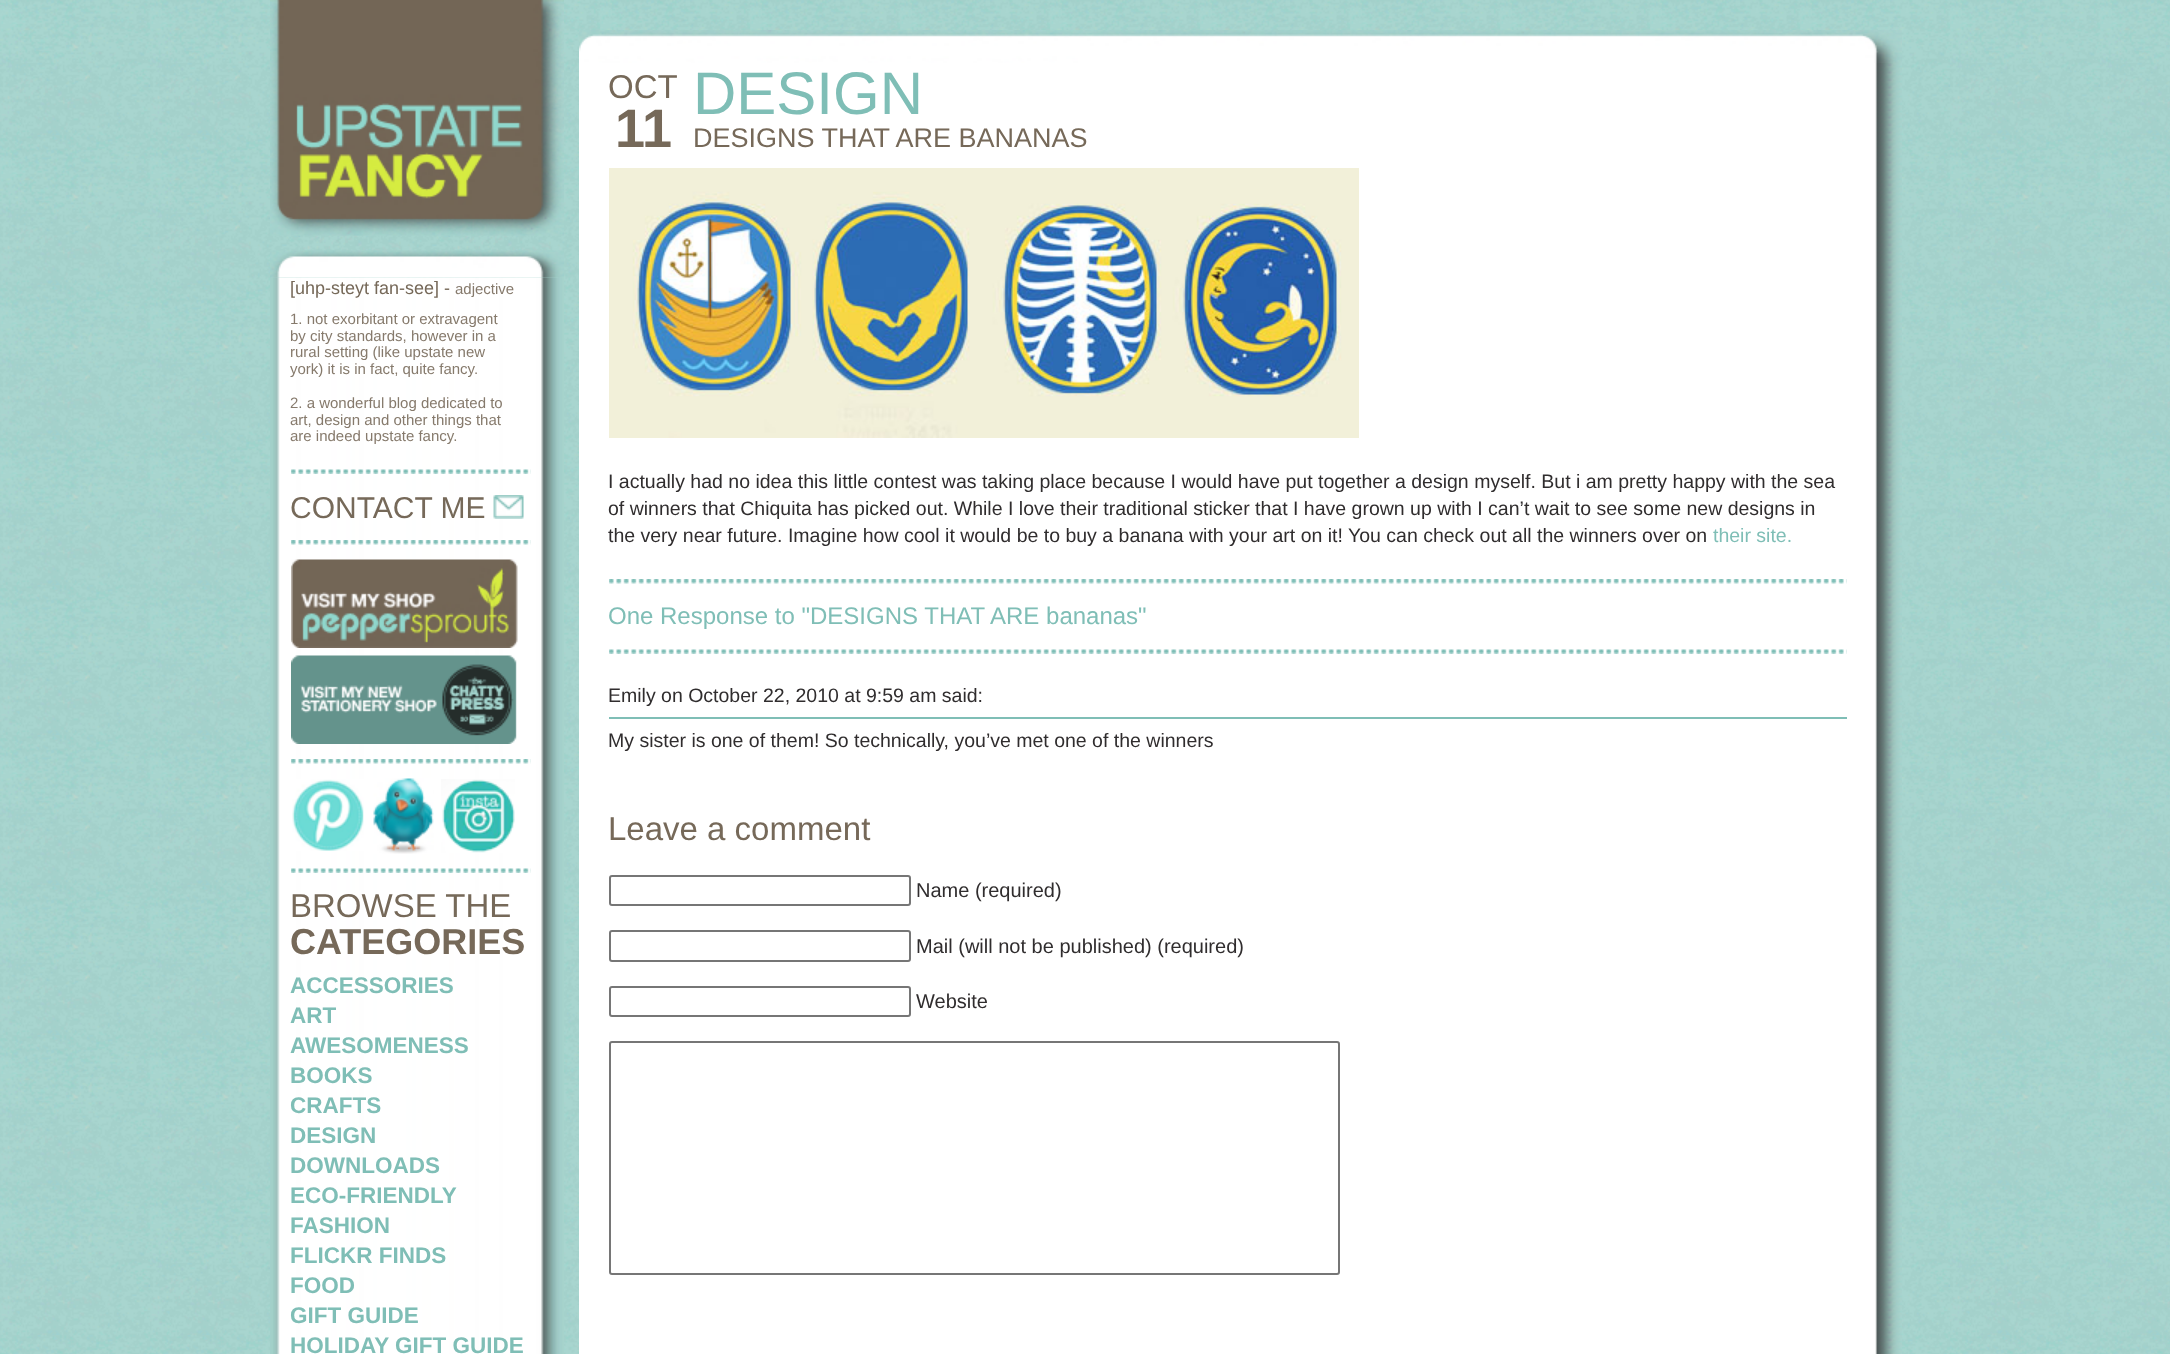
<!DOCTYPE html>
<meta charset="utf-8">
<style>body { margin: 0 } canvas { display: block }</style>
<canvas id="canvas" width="2170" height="1354"></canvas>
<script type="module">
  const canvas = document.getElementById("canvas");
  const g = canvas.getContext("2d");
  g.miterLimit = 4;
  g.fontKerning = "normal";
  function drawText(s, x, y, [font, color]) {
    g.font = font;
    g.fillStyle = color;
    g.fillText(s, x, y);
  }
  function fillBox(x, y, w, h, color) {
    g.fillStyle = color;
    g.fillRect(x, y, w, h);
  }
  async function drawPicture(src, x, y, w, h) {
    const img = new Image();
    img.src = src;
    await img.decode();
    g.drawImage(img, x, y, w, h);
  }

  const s1 = ["18px Liberation Sans", "#766959"];
  const s2 = ["15px Liberation Sans", "#867A6C"];
  const s3 = ["30px Liberation Sans", "#766959"];
  const s4 = ["33px Liberation Sans", "#766959"];
  const s5 = ["bold 36px Liberation Sans", "#766959"];
  const s6 = ["bold 22.5px Liberation Sans", "#7FBEB6"];
  const s7 = ["bold 54px Liberation Sans", "#766959"];
  const s8 = ["60px Liberation Sans", "#7FBEB6"];
  const s9 = ["27px Liberation Sans", "#766959"];
  const s10 = ["19.5px Liberation Sans", "#302D2E"];
  const s11 = ["19.5px Liberation Sans", "#7FBEB6"];
  const s12 = ["24px Liberation Sans", "#7FBEB6"];
  const s13 = ["20px Liberation Sans", "#302D2E"];

  fillBox(0, 0, 2170, 1354, "#FFFFFF");
  await drawPicture("pic1.png", 0, 0, 2170, 1354);
  await drawPicture("pic2.png", 270, 0, 294, 236);
  await drawPicture("pic4.png", 270, 277, 294, 1077);
  await drawPicture("pic3.png", 270, 250, 294, 28);
  drawText("[uhp-steyt fan-see] -", 290, 294, s1);
  drawText("adjective", 455, 294, s2);
  drawText("1. not exorbitant or extravagent", 290, 324, s2);
  drawText("by city standards, however in a", 290, 341, s2);
  drawText("rural setting (like upstate new", 290, 357, s2);
  drawText("york) it is in fact, quite fancy.", 290, 374, s2);
  drawText("2. a wonderful blog dedicated to", 290, 408, s2);
  drawText("art, design and other things that", 290, 425, s2);
  drawText("are indeed upstate fancy.", 290, 441, s2);
  await drawPicture("pic5.png", 291, 469, 240, 5);
  drawText("CONTACT ME", 290, 518, s3);
  await drawPicture("pic6.png", 493, 495, 31, 24);
  await drawPicture("pic7.png", 291, 540, 240, 5);
  await drawPicture("pic8.png", 291, 559, 227, 89);
  await drawPicture("pic9.png", 291, 655, 226, 89);
  await drawPicture("pic10.png", 291, 759, 240, 5);
  await drawPicture("pic11.png", 292, 779, 72, 72);
  await drawPicture("pic12.png", 373, 778, 61, 76);
  await drawPicture("pic13.png", 441, 779, 74, 74);
  await drawPicture("pic5.png", 291, 868, 240, 5);
  drawText("BROWSE THE", 290, 917, s4);
  drawText("CATEGORIES", 290, 954, s5);
  drawText("ACCESSORIES", 290, 993, s6);
  drawText("ART", 290, 1023, s6);
  drawText("AWESOMENESS", 290, 1053, s6);
  drawText("BOOKS", 290, 1083, s6);
  drawText("CRAFTS", 290, 1113, s6);
  drawText("DESIGN", 290, 1143, s6);
  drawText("DOWNLOADS", 290, 1173, s6);
  drawText("ECO-FRIENDLY", 290, 1203, s6);
  drawText("FASHION", 290, 1233, s6);
  drawText("FLICKR FINDS", 290, 1263, s6);
  drawText("FOOD", 290, 1293, s6);
  drawText("GIFT GUIDE", 290, 1323, s6);
  drawText("HOLIDAY GIFT GUIDE", 290, 1353, s6);
  fillBox(579, 63, 1296, 1291, "#FFFFFF");
  await drawPicture("pic14.png", 1875, 63, 27, 1291);
  await drawPicture("pic15.png", 579, 30, 1323, 33);
  drawText("OCT", 608, 98, s4);
  drawText("11", 615, 147, s7);
  drawText("DESIGN", 693, 114, s8);
  drawText("DESIGNS THAT ARE BANANAS", 693, 147, s9);
  await drawPicture("pic16.png", 609, 168, 750, 270);
  drawText("I actually had no idea this little contest was taking place because I would have put together a design myself. But i am pretty happy with the sea", 608, 488, s10);
  drawText("of winners that Chiquita has picked out. While I love their traditional sticker that I have grown up with I can’t wait to see some new designs in", 608, 515, s10);
  drawText("the very near future. Imagine how cool it would be to buy a banana with your art on it! You can check out all the winners over on", 608, 542, s10);
  drawText("their site.", 1713, 542, s11);
  await drawPicture("pic17.png", 609, 579, 1238, 5);
  drawText("One Response to \"DESIGNS THAT ARE bananas\"", 608, 624, s12);
  await drawPicture("pic18.png", 609, 649, 1238, 5);
  drawText("Emily on October 22, 2010 at 9:59 am said:", 608, 702, s10);
  fillBox(609, 717, 1238, 2, "#7FBEB6");
  drawText("My sister is one of them! So technically, you’ve met one of the winners", 608, 747, s10);
  drawText("Leave a comment", 608, 840, s4);
  g.beginPath();
  g.roundRect(610, 876, 300, 29, 2);
  g.strokeStyle = "#767676";
  g.lineWidth = 2;
  g.stroke();
  drawText("Name (required)", 916, 897, s13);
  g.beginPath();
  g.roundRect(610, 931, 300, 30, 2);
  g.stroke();
  drawText("Mail (will not be published) (required)", 916, 953, s13);
  g.beginPath();
  g.roundRect(610, 987, 300, 29, 2);
  g.stroke();
  drawText("Website", 916, 1008, s13);
  g.beginPath();
  g.roundRect(610, 1042, 729, 232, 2);
  g.stroke();
</script>
